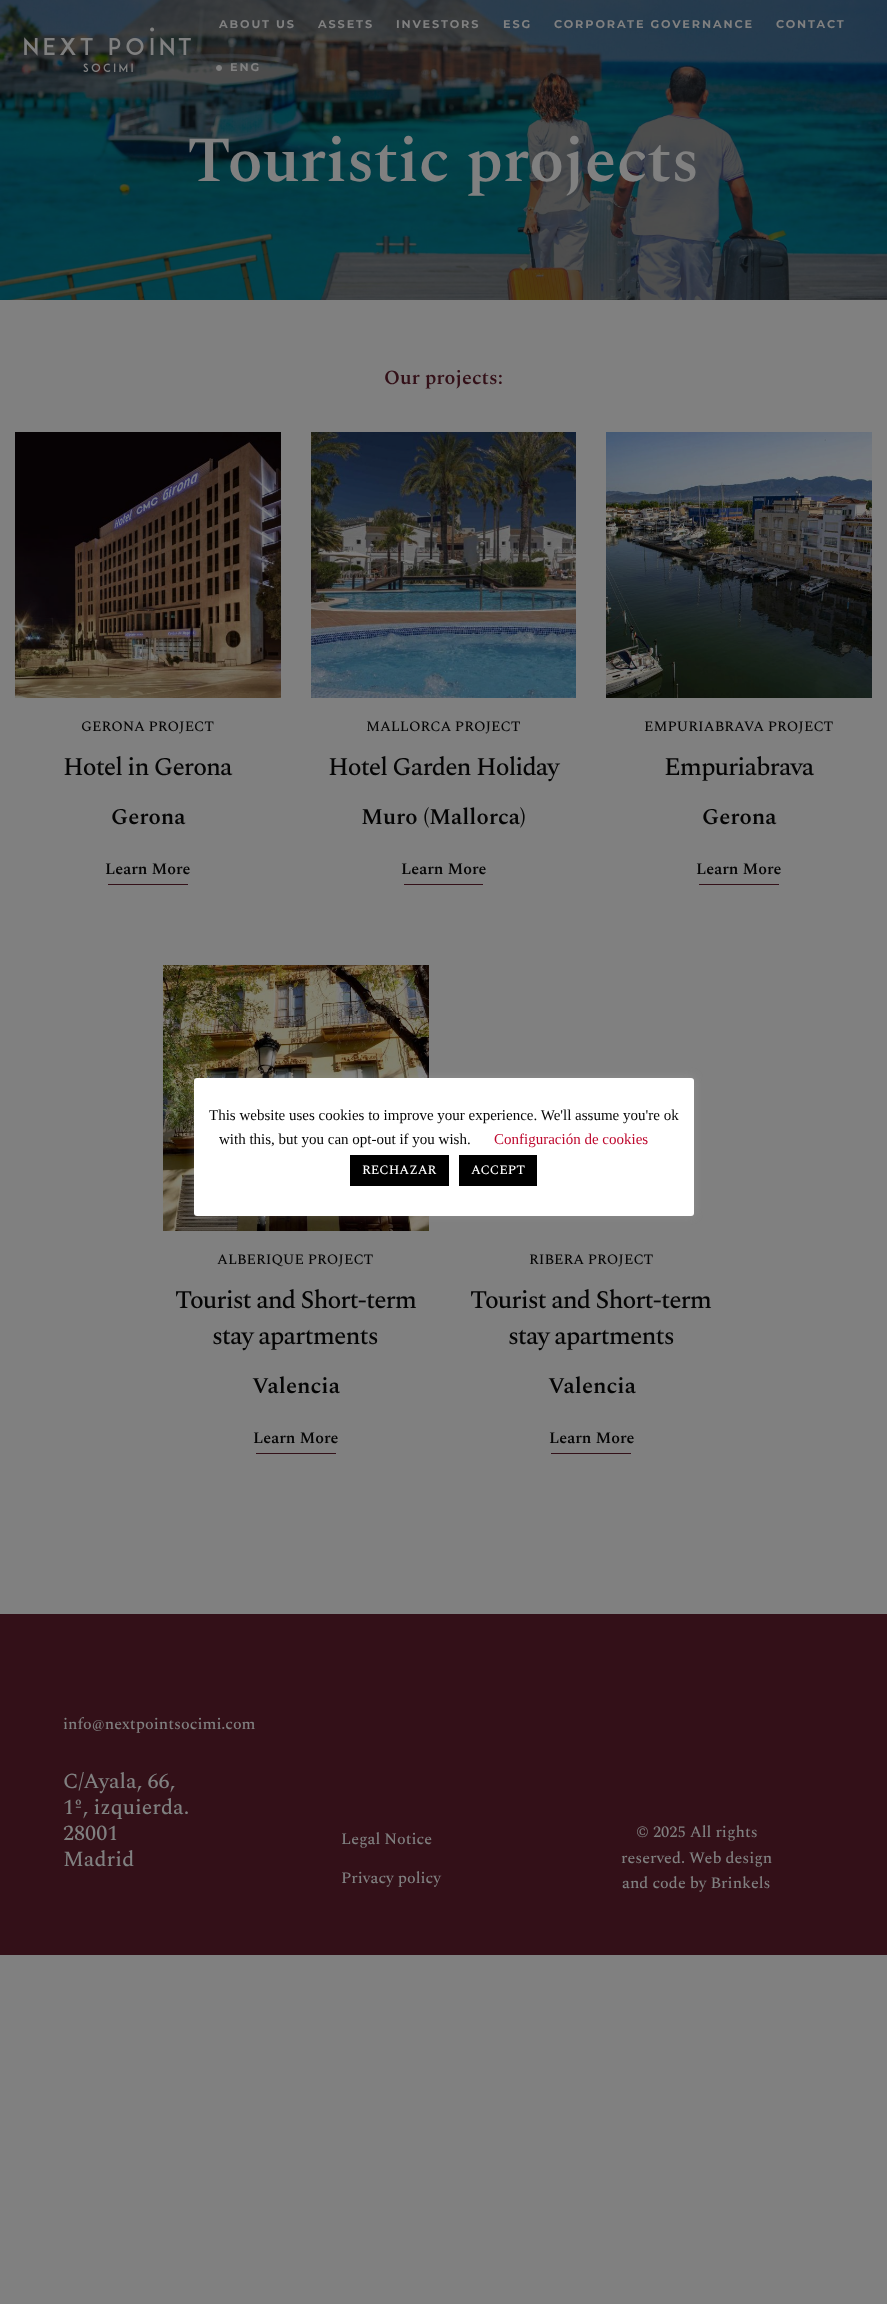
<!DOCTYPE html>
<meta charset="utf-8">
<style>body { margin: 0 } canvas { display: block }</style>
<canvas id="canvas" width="887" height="2304"></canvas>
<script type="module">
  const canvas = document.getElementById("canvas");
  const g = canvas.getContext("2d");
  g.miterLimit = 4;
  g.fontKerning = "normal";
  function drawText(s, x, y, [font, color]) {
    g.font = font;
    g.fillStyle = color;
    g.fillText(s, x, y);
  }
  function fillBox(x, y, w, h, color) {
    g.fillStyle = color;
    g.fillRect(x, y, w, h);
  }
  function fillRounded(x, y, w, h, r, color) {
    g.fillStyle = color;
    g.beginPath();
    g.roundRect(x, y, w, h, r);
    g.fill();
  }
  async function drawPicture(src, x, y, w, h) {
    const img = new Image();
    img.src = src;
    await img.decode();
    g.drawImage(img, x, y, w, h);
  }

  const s1 = ["bold 11.25px Montserrat", "#808080"];
  const s2 = ["600 64px Spectral", "#808080"];
  const s3 = ["600 20px Spectral", "#331018"];
  const s4 = ["500 14.4px Spectral", "#050505"];
  const s5 = ["500 25.5px Spectral", "#050505"];
  const s6 = ["600 22.5px Spectral", "#050505"];
  const s7 = ["600 16px Spectral", "#050505"];
  const s8 = ["15px Liberation Serif", "#050505"];
  const s9 = ["15px Liberation Serif", "#BE072D"];
  const s10 = ["500 13px Spectral", "#FFFFFF"];
  const s11 = ["500 16px Spectral", "#808080"];
  const s12 = ["500 21.5px Spectral", "#808080"];

  fillBox(0, 0, 887, 2304, "#808080");
  await drawPicture("pic2.png", 0, 0, 887, 300);
  await drawPicture("pic1.png", 24, 27, 167, 45);
  g.letterSpacing = "1.9px";
  drawText("ABOUT US", 219, 28, s1);
  drawText("ASSETS", 318, 28, s1);
  drawText("INVESTORS", 396, 28, s1);
  drawText("ESG", 503, 28, s1);
  drawText("CORPORATE GOVERNANCE", 554, 28, s1);
  drawText("CONTACT", 776, 28, s1);
  g.beginPath();
  g.arc(219, 68, 2.5, 0, Math.PI * 2);
  g.fill();
  g.strokeStyle = "#808080";
  g.stroke();
  drawText("ENG", 230, 71, s1);
  g.letterSpacing = "0px";
  drawText("Touristic projects", 187, 181, s2);
  drawText("Our projects:", 384, 384, s3);
  await drawPicture("pic3.png", 15, 432, 266, 266);
  drawText("GERONA PROJECT", 81, 731, s4);
  g.letterSpacing = "-1px";
  drawText("Hotel in Gerona", 63, 775, s5);
  g.letterSpacing = "0px";
  drawText("Gerona", 111, 824, s6);
  drawText("Learn More", 105, 874, s7);
  fillBox(108, 884, 80, 1, "#331018");
  await drawPicture("pic4.png", 311, 432, 265, 266);
  drawText("MALLORCA PROJECT", 366, 731, s4);
  g.letterSpacing = "-1px";
  drawText("Hotel Garden Holiday", 328, 775, s5);
  g.letterSpacing = "0px";
  drawText("Muro (Mallorca)", 361, 824, s6);
  drawText("Learn More", 401, 874, s7);
  fillBox(404, 884, 79, 1, "#331018");
  await drawPicture("pic5.png", 606, 432, 266, 266);
  drawText("EMPURIABRAVA PROJECT", 644, 731, s4);
  g.letterSpacing = "-1px";
  drawText("Empuriabrava", 664, 775, s5);
  g.letterSpacing = "0px";
  drawText("Gerona", 702, 824, s6);
  drawText("Learn More", 696, 874, s7);
  fillBox(699, 884, 80, 1, "#331018");
  await drawPicture("pic6.png", 163, 965, 266, 266);
  drawText("ALBERIQUE PROJECT", 217, 1264, s4);
  g.letterSpacing = "-1px";
  drawText("Tourist and Short-term", 175, 1308, s5);
  drawText("stay apartments", 212, 1344, s5);
  g.letterSpacing = "0px";
  drawText("Valencia", 252, 1393, s6);
  drawText("Learn More", 253, 1443, s7);
  fillBox(256, 1453, 80, 1, "#331018");
  drawText("RIBERA PROJECT", 529, 1264, s4);
  g.letterSpacing = "-1px";
  drawText("Tourist and Short-term", 470, 1308, s5);
  drawText("stay apartments", 508, 1344, s5);
  g.letterSpacing = "0px";
  drawText("Valencia", 548, 1393, s6);
  drawText("Learn More", 549, 1443, s7);
  fillBox(551, 1453, 80, 1, "#331018");
  g.fillStyle = "rgba(172, 171, 171, 0.3)";
  g.filter = "blur(5px)";
  g.beginPath();
  g.roundRect(194, 1077, 500, 138, 3);
  g.fill();
  g.filter = "none";
  fillRounded(194, 1078, 500, 138, 3, "#FFFFFF");
  drawText("This website uses cookies to improve your experience. We'll assume you're ok", 209, 1120, s8);
  drawText("with this, but you can opt-out if you wish.", 219, 1144, s8);
  drawText("Configuración de cookies", 494, 1144, s9);
  fillBox(350, 1155, 99, 31, "#000000");
  drawText("RECHAZAR", 362, 1174, s10);
  fillBox(459, 1155, 78, 31, "#000000");
  drawText("ACCEPT", 471, 1174, s10);
  fillBox(0, 1614, 887, 341, "#331018");
  drawText("info@nextpointsocimi.com", 63, 1729, s11);
  drawText("C/Ayala, 66,", 63, 1788, s12);
  drawText("1º, izquierda.", 63, 1814, s12);
  drawText("28001", 63, 1840, s12);
  drawText("Madrid", 63, 1866, s12);
  drawText("Legal Notice", 341, 1844, s11);
  drawText("Privacy policy", 341, 1883, s11);
  drawText("© 2025 All rights", 636, 1837, s11);
  drawText("reserved. Web design", 621, 1863, s11);
  drawText("and code by Brinkels", 622, 1888, s11);
</script>
